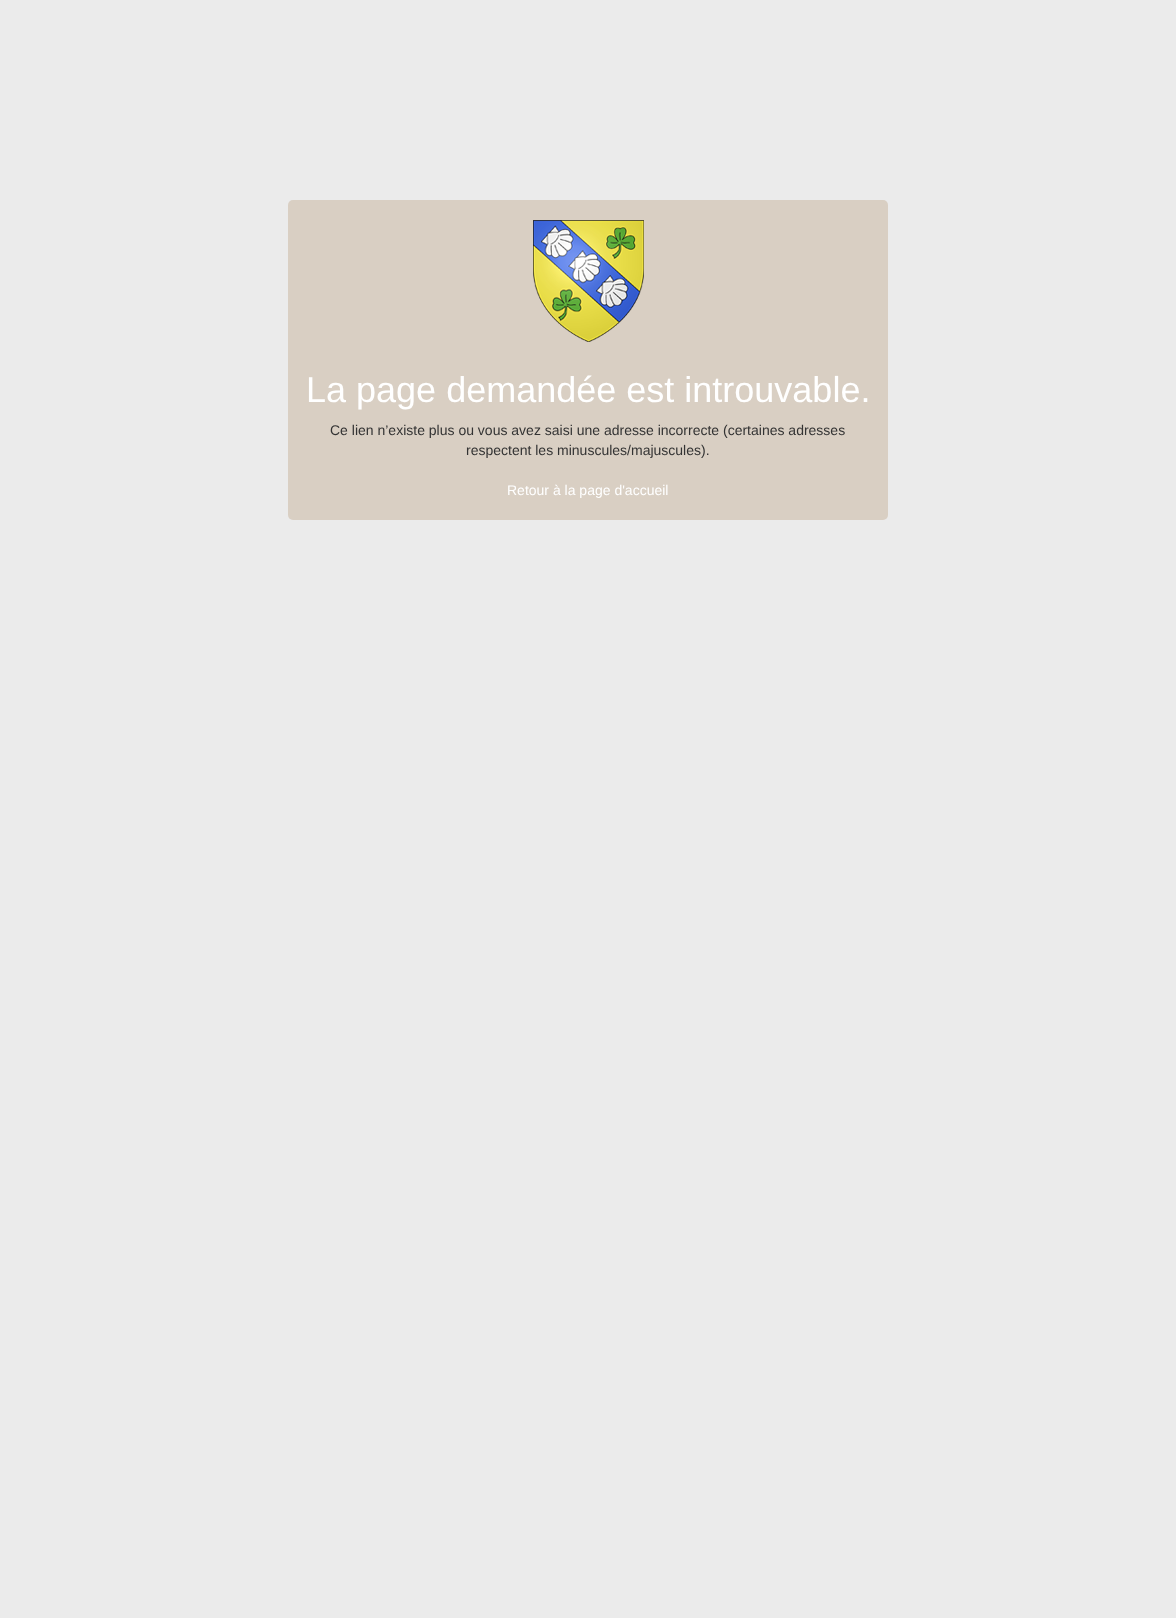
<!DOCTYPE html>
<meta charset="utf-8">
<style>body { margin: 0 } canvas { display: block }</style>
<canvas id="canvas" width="1176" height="1618"></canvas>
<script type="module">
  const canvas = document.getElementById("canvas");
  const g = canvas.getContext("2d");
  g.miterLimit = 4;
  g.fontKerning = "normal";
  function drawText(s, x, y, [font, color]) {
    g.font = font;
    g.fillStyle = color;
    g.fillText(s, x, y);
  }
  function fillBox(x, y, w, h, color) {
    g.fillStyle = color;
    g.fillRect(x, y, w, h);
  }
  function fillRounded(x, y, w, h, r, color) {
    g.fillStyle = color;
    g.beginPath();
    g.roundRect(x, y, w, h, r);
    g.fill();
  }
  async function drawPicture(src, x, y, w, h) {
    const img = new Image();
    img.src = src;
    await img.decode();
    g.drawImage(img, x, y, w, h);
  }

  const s1 = ["36px Liberation Sans", "#FFFFFF"];
  const s2 = ["14px Liberation Sans", "#333333"];
  const s3 = ["14px Liberation Sans", "#FFFFFF"];

  fillBox(0, 0, 1176, 1618, "#EBEBEB");
  fillRounded(288, 200, 600, 320, 5, "#D9CFC3");
  await drawPicture("pic1.png", 533, 220, 111, 122);
  drawText("La page demandée est introuvable.", 306, 402, s1);
  drawText("Ce lien n’existe plus ou vous avez saisi une adresse incorrecte (certaines adresses", 330, 435, s2);
  drawText("respectent les minuscules/majuscules).", 466, 455, s2);
  drawText("Retour à la page d'accueil", 507, 495, s3);
</script>
